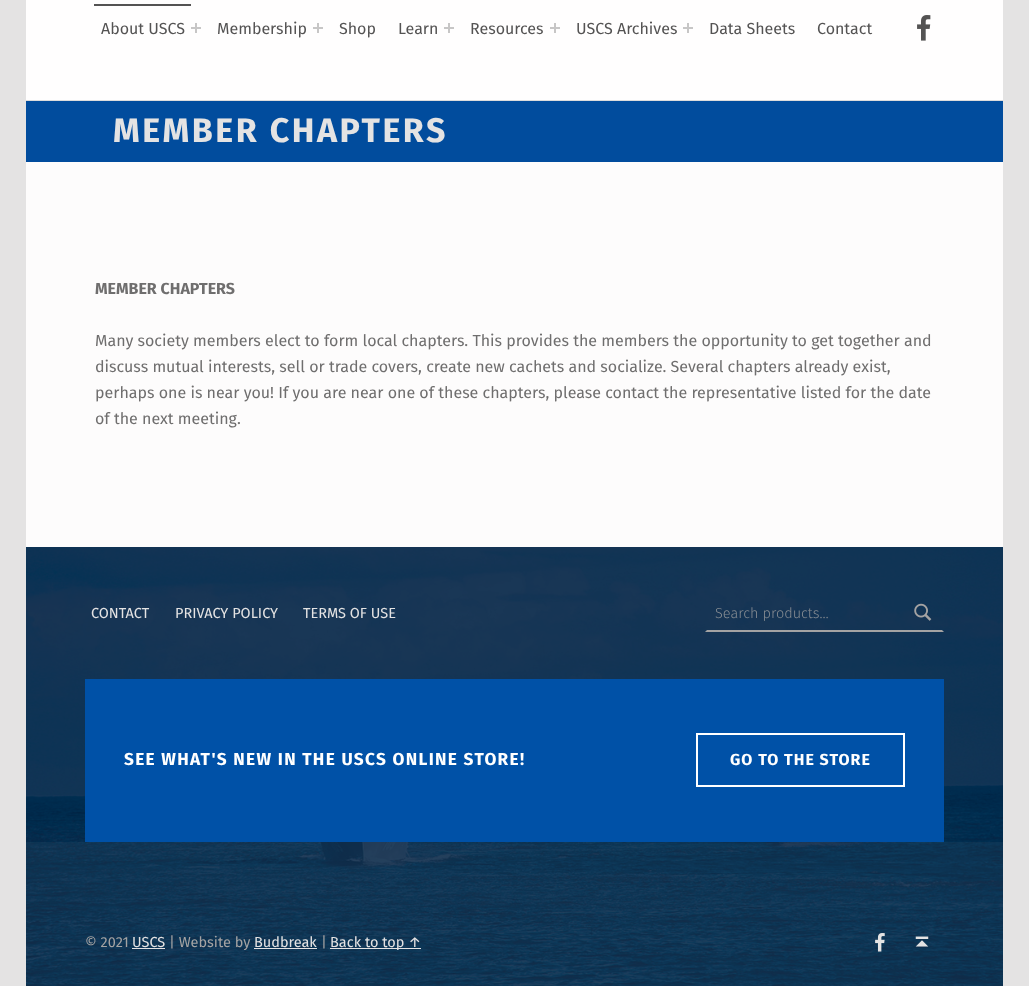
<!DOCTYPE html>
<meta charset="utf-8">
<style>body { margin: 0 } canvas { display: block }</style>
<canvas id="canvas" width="1029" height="986"></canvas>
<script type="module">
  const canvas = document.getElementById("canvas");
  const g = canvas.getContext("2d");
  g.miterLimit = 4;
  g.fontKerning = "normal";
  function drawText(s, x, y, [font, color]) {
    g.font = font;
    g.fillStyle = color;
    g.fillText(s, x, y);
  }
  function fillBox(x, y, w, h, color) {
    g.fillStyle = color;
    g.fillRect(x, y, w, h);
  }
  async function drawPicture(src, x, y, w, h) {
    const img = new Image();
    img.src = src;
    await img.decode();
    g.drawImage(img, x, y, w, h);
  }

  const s1 = ["16px Fira Sans", "#545353"];
  const s2 = ["bold 34px Fira Sans", "#E4E3E3"];
  const s3 = ["bold 16px Fira Sans", "#6F6E6E"];
  const s4 = ["16px Fira Sans", "#6F6E6E"];
  const s5 = ["14.5px Fira Sans", "#E4E3E3"];
  const s6 = ["300 14.5px Fira Sans", "#878D93"];
  const s7 = ["bold 17.25px Fira Sans", "#FFFFFF"];
  const s8 = ["bold 16px Fira Sans", "#FFFFFF"];
  const s9 = ["14.5px Fira Sans", "#A4A3A3"];

  fillBox(0, 0, 1029, 986, "#E4E3E3");
  fillBox(26, 162, 977, 385, "#FDFCFC");
  fillBox(26, 0, 977, 100, "#FFFEFE");
  fillBox(26, 100, 977, 1, "#DDDCDC");
  fillBox(94, 4, 97, 2, "#545353");
  drawText("About USCS", 101, 34, s1);
  fillBox(195, 23, 2, 10, "#C7C6C6");
  fillBox(191, 27, 10, 2, "#C7C6C6");
  drawText("Membership", 217, 34, s1);
  fillBox(317, 23, 2, 10, "#C7C6C6");
  fillBox(313, 27, 10, 2, "#C7C6C6");
  drawText("Shop", 339, 34, s1);
  drawText("Learn", 398, 34, s1);
  fillBox(448, 23, 2, 10, "#C7C6C6");
  fillBox(444, 27, 10, 2, "#C7C6C6");
  drawText("Resources", 470, 34, s1);
  fillBox(554, 23, 2, 10, "#C7C6C6");
  fillBox(550, 27, 10, 2, "#C7C6C6");
  drawText("USCS Archives", 576, 34, s1);
  fillBox(687, 23, 2, 10, "#C7C6C6");
  fillBox(683, 27, 10, 2, "#C7C6C6");
  drawText("Data Sheets", 709, 34, s1);
  drawText("Contact", 817, 34, s1);
  await drawPicture("pic1.png", 917, 15, 14, 26);
  fillBox(26, 101, 977, 61, "#014C9D");
  g.letterSpacing = "2.5px";
  drawText("MEMBER CHAPTERS", 113, 142, s2);
  g.letterSpacing = "0px";
  drawText("MEMBER CHAPTERS", 95, 294, s3);
  drawText("Many society members elect to form local chapters. This provides the members the opportunity to get together and", 95, 346, s4);
  drawText("discuss mutual interests, sell or trade covers, create new cachets and socialize. Several chapters already exist,", 95, 372, s4);
  drawText("perhaps one is near you! If you are near one of these chapters, please contact the representative listed for the date", 95, 398, s4);
  drawText("of the next meeting.", 95, 424, s4);
  fillBox(26, 547, 977, 439, "#002244");
  await drawPicture("pic2.png", 26, 547, 977, 439);
  drawText("CONTACT", 91, 618, s5);
  drawText("PRIVACY POLICY", 175, 618, s5);
  drawText("TERMS OF USE", 303, 618, s5);
  g.fillStyle = "#A4A3A3";
  g.beginPath();
  g.moveTo(944, 632);
  g.lineTo(705, 632);
  g.lineTo(707, 630);
  g.lineTo(942, 630);
  g.closePath();
  g.fill();
  drawText("Search products…", 715, 618, s6);
  await drawPicture("pic3.png", 914, 603, 18, 18);
  fillBox(85, 679, 859, 163, "#0051A7");
  g.letterSpacing = "1.3px";
  drawText("SEE WHAT'S NEW IN THE USCS ONLINE STORE!", 124, 765, s7);
  g.strokeStyle = "#FFFFFF";
  g.lineWidth = 2;
  g.strokeRect(697, 734, 207, 52);
  g.letterSpacing = "1px";
  drawText("GO TO THE STORE", 730, 765, s8);
  fillBox(26, 842, 977, 144, "rgba(164, 163, 163, 0.07)");
  g.letterSpacing = "0px";
  drawText("© 2021", 85, 947, s9);
  drawText("USCS", 132, 947, s5);
  fillBox(132, 948, 33, 1, "#E4E3E3");
  drawText("| Website by", 169, 947, s9);
  drawText("Budbreak", 254, 947, s5);
  fillBox(254, 948, 63, 1, "#E4E3E3");
  drawText("|", 321, 947, s9);
  fillBox(330, 948, 91, 1, "#E4E3E3");
  drawText("Back to top ↑", 330, 947, s5);
  await drawPicture("pic4.png", 875, 933, 10, 19);
  await drawPicture("pic5.png", 915, 936, 14, 11);
</script>
